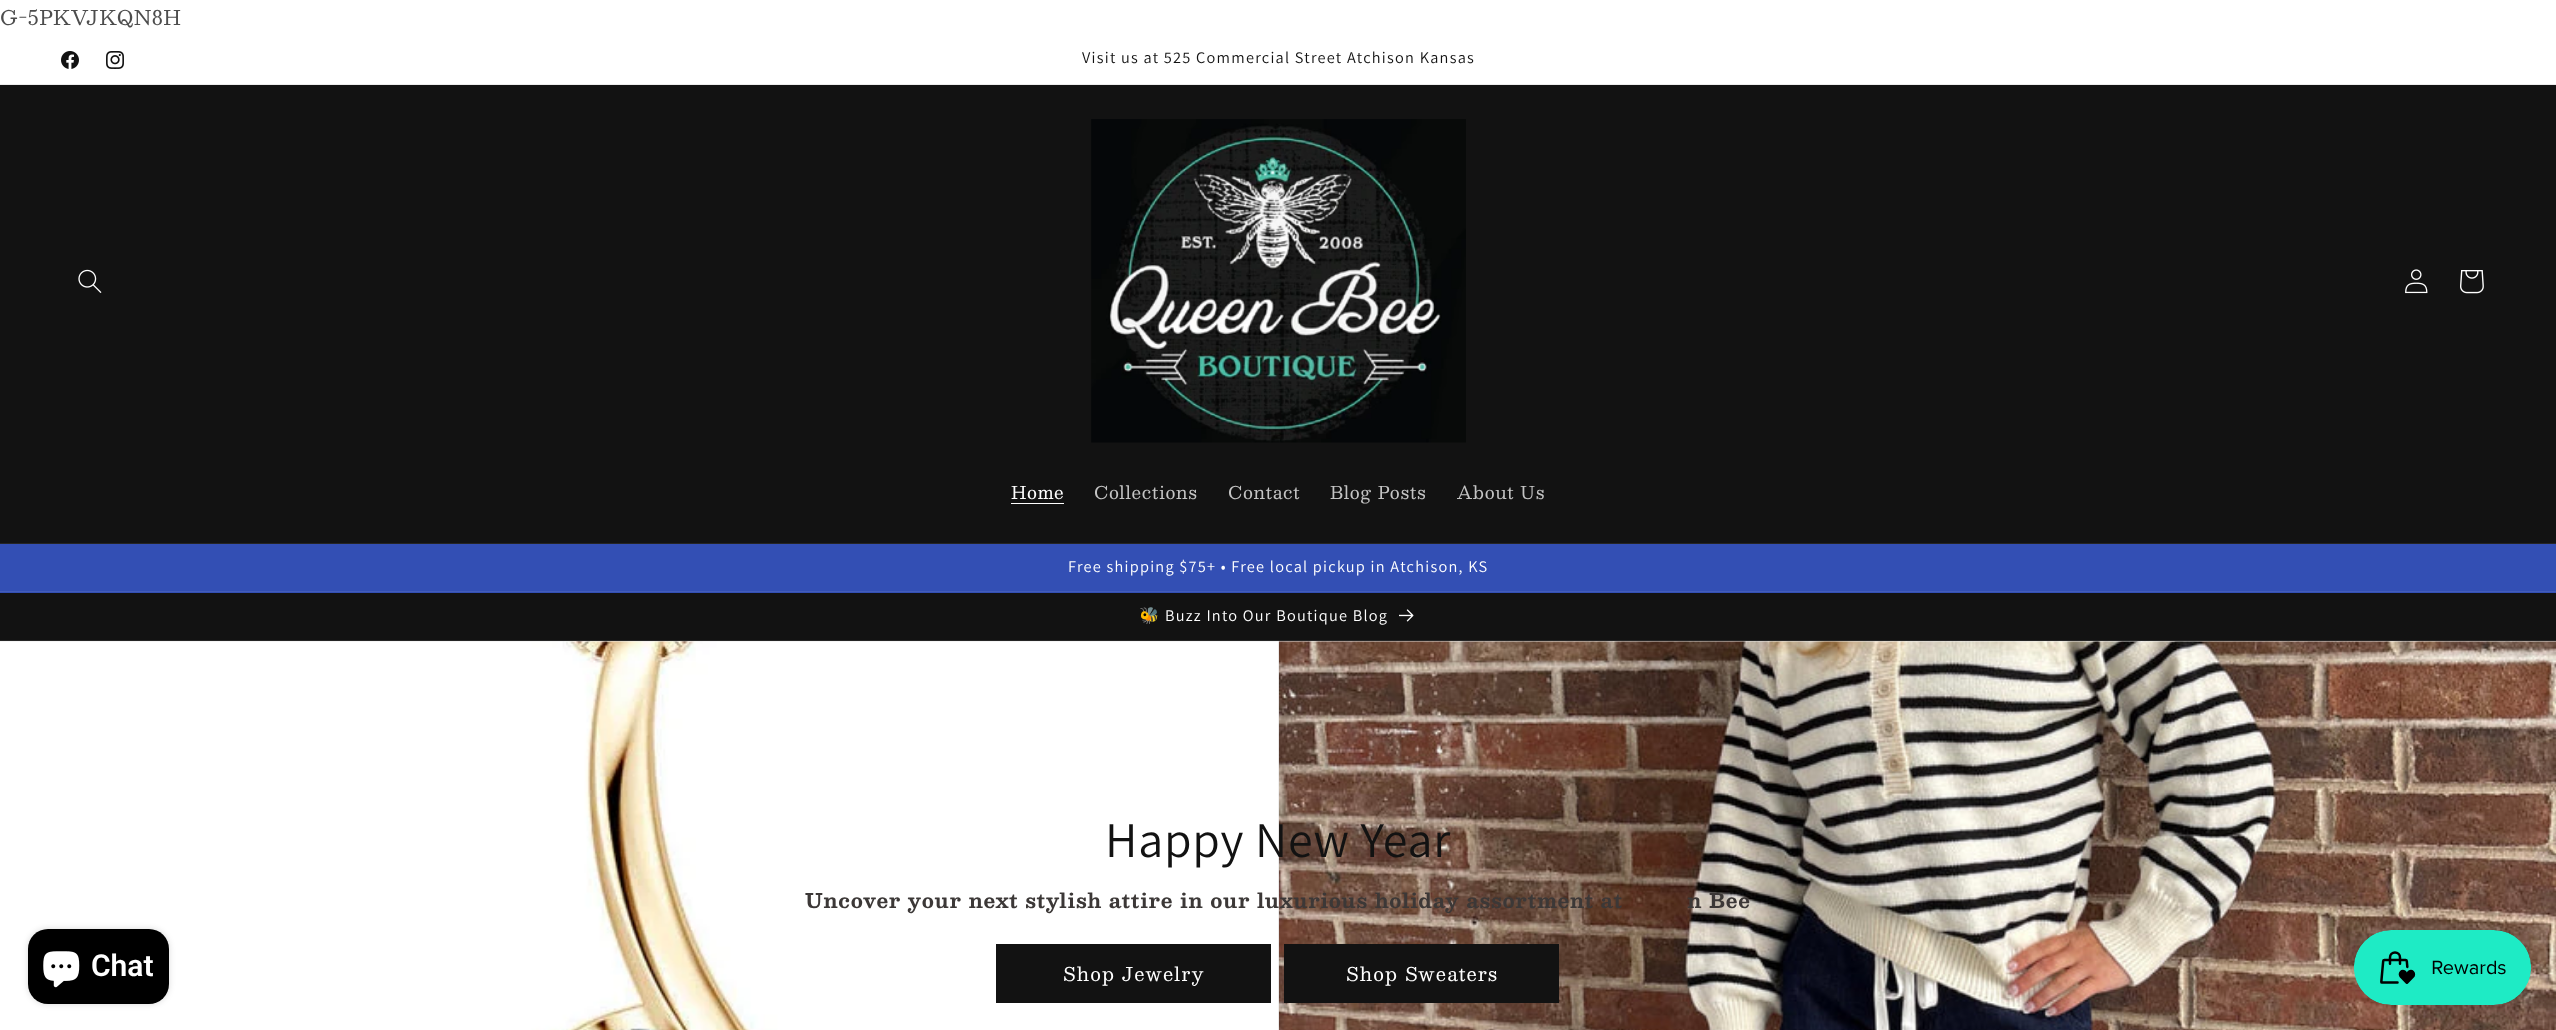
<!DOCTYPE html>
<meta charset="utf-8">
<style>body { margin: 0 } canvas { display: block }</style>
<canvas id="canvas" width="2556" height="1030"></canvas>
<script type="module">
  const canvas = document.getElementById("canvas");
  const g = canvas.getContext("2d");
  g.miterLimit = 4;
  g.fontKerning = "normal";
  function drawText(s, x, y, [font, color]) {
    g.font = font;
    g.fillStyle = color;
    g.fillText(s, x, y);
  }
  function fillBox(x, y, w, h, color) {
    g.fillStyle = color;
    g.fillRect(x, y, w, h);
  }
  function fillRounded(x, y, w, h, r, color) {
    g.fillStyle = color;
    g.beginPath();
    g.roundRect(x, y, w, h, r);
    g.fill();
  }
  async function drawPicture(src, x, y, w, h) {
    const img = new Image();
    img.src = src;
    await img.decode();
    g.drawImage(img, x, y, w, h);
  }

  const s1 = ["20px Besley", "#4D4D4D"];
  const s2 = ["16.25px Assistant", "#121212"];
  const s3 = ["17.5px Besley", "#FFFFFF"];
  const s4 = ["17.5px Besley", "#C4C4C4"];
  const s5 = ["16.25px Assistant", "#FFFFFF"];
  const s6 = ["16.25px Noto Color Emoji", "#FFFFFF"];
  const s7 = ["600 30px Roboto", "#FFFFFF"];
  const s8 = ["50px Assistant", "#121212"];
  const s9 = ["bold 20px Besley", "#3C3837"];
  const s10 = ["18.75px Besley", "#FFFFFF"];

  fillBox(0, 0, 2556, 1030, "#FFFFFF");
  g.letterSpacing = "0.75px";
  drawText("G-5PKVJKQN8H", 0, 25, s1);
  fillBox(0, 84, 2556, 1, "#ECECEC");
  await drawPicture("pic1.png", 61, 51, 18, 18);
  await drawPicture("pic2.png", 106, 51, 18, 18);
  g.letterSpacing = "1.25px";
  drawText("Visit us at 525 Commercial Street Atchison Kansas", 1082, 63, s2);
  fillBox(0, 85, 2556, 458, "#121212");
  fillBox(0, 543, 2556, 1, "#252525");
  await drawPicture("pic3.png", 78, 269, 24, 24);
  await drawPicture("pic4.png", 1091, 119, 375, 324);
  await drawPicture("pic5.png", 2405, 269, 23, 25);
  await drawPicture("pic6.png", 2460, 270, 24, 24);
  g.letterSpacing = "0.75px";
  drawText("Home", 1011, 499, s3);
  fillBox(1011, 503, 53, 1, "#FFFFFF");
  drawText("Collections", 1094, 499, s4);
  drawText("Contact", 1228, 499, s4);
  drawText("Blog Posts", 1330, 499, s4);
  drawText("About Us", 1457, 499, s4);
  fillBox(0, 544, 2556, 49, "#334FB4");
  fillBox(0, 591, 2556, 1, "#435DBA");
  g.letterSpacing = "1.25px";
  drawText("Free shipping $75+ • Free local pickup in Atchison, KS", 1068, 572, s5);
  fillBox(0, 593, 2556, 47, "#121212");
  fillBox(0, 640, 2556, 1, "#252525");
  drawText("🐝", 1139, 621, s6);
  drawText("Buzz Into Our Boutique Blog", 1165, 621, s5);
  await drawPicture("pic7.png", 1399, 609, 15, 13);
  fillBox(0, 641, 1279, 389, "#E8E8E8");
  await drawPicture("pic9.png", 0, 641, 1279, 389);
  g.fillStyle = "rgba(0, 0, 0, 0.15)";
  g.filter = "blur(3px)";
  g.beginPath();
  g.roundRect(28, 929, 141, 75, 20);
  g.fill();
  g.filter = "none";
  fillRounded(28, 929, 141, 75, 20, "#000000");
  await drawPicture("pic8.png", 43, 951, 37, 37);
  g.letterSpacing = "0px";
  drawText("Chat", 91, 976, s7);
  fillBox(1279, 641, 1277, 1, "#E8E8E8");
  await drawPicture("pic10.png", 1278, 641, 1278, 389);
  g.letterSpacing = "0.75px";
  drawText("Happy New Year", 1105, 857, s8);
  drawText("Uncover your next stylish attire in our luxurious holiday assortment at", 805, 908, s9);
  drawText("n Bee", 1687, 908, s9);
  fillBox(996, 944, 275, 59, "#121212");
  g.letterSpacing = "1.25px";
  drawText("Shop Jewelry", 1063, 981, s10);
  fillBox(1284, 944, 275, 59, "#121212");
  drawText("Shop Sweaters", 1346, 981, s10);
  g.fillStyle = "rgba(0, 0, 0, 0.05)";
  g.filter = "blur(15.5px)";
  g.beginPath();
  g.roundRect(2354, 930, 177, 75, 37.5);
  g.fill();
  g.filter = "none";
  await drawPicture("pic11.png", 2354, 930, 177, 75);
</script>
